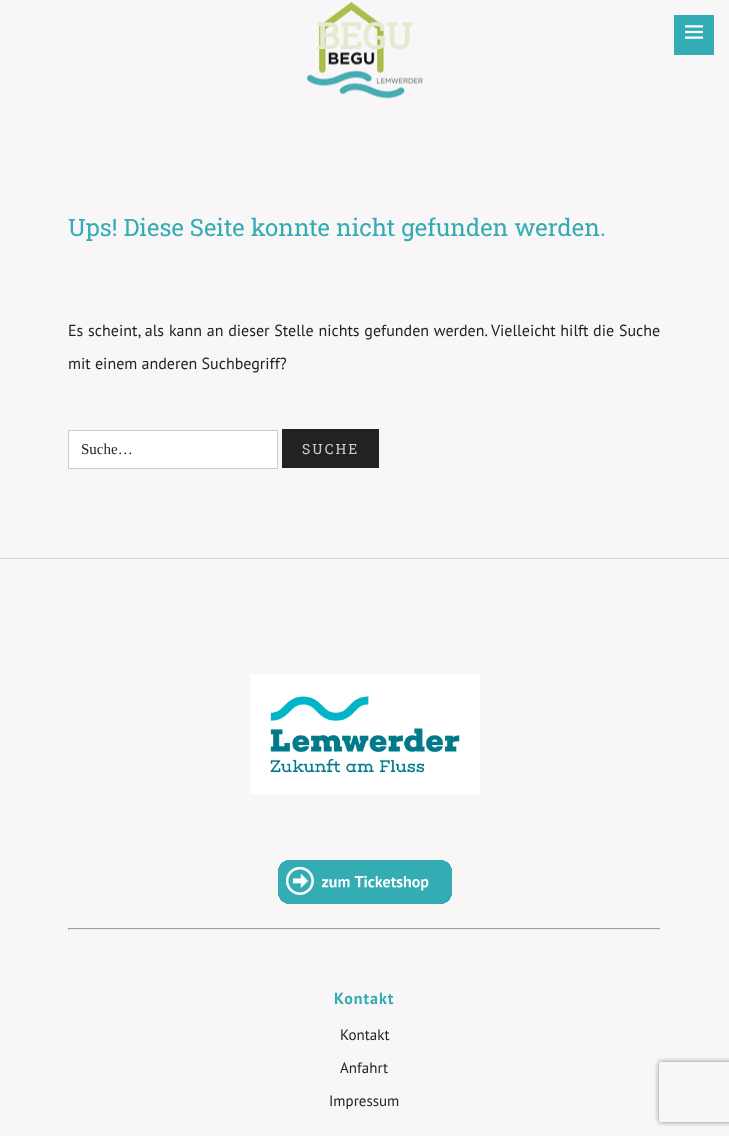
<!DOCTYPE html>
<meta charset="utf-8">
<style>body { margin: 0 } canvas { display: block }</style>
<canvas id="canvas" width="729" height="1136"></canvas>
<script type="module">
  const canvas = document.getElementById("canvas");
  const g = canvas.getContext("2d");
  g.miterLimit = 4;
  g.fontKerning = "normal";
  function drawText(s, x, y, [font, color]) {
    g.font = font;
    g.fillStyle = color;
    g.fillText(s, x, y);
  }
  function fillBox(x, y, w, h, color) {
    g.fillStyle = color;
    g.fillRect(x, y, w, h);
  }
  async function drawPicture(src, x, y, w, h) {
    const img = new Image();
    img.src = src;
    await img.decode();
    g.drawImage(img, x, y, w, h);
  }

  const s1 = ["bold 36px Roboto Slab", "#E6E9D1"];
  const s2 = ["24px Roboto Slab", "#34ACB3"];
  const s3 = ["16px PT Sans", "#222222"];
  const s4 = ["15px Liberation Serif", "#222222"];
  const s5 = ["14px Roboto Slab", "#CBCBCB"];
  const s6 = ["bold 16px PT Sans", "#34ACB3"];
  const s7 = ["15px PT Sans", "#222222"];

  fillBox(0, 0, 729, 1136, "#F8F6F7");
  await drawPicture("pic1.png", 307, 1, 116, 98);
  drawText("BEGU", 316, 49, s1);
  fillBox(674, 15, 40, 40, "#34ACB3");
  await drawPicture("pic2.png", 685, 25, 18, 14);
  fillBox(0, 558, 729, 1, "#D3D1D2");
  drawText("Ups! Diese Seite konnte nicht gefunden werden.", 68, 236, s2);
  g.wordSpacing = "0.5px";
  drawText("Es scheint, als kann an dieser Stelle nichts gefunden werden. Vielleicht hilft die Suche", 68, 336, s3);
  g.wordSpacing = "0px";
  drawText("mit einem anderen Suchbegriff?", 68, 369, s3);
  g.fillStyle = "#FFFFFF";
  g.beginPath();
  g.rect(68.5, 430.5, 209, 38);
  g.fill();
  g.strokeStyle = "#CCCCCC";
  g.stroke();
  drawText("Suche…", 81, 454, s4);
  fillBox(282, 429, 97, 39, "#222222");
  g.letterSpacing = "2px";
  drawText("SUCHE", 302, 454, s5);
  await drawPicture("pic3.png", 250, 674, 230, 120);
  await drawPicture("pic4.png", 278, 860, 174, 44);
  fillBox(68, 928, 593, 1, "#9F9F9F");
  fillBox(660, 928, 1, 2, "#EEEEEE");
  fillBox(68, 929, 593, 1, "#EEEEEE");
  fillBox(68, 928, 1, 2, "#9F9F9F");
  g.letterSpacing = "1px";
  drawText("Kontakt", 334, 1004, s6);
  g.letterSpacing = "0px";
  drawText("Kontakt", 340, 1040, s7);
  drawText("Anfahrt", 340, 1073, s7);
  drawText("Impressum", 329, 1106, s7);
  g.save();
  g.beginPath();
  g.moveTo(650, 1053);
  g.lineTo(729, 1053);
  g.lineTo(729, 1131);
  g.lineTo(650, 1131);
  g.closePath();
  g.moveTo(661, 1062);
  g.lineTo(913, 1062);
  g.bezierCurveTo(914, 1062, 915, 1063, 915, 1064);
  g.lineTo(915, 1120);
  g.bezierCurveTo(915, 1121, 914, 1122, 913, 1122);
  g.lineTo(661, 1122);
  g.bezierCurveTo(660, 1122, 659, 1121, 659, 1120);
  g.lineTo(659, 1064);
  g.bezierCurveTo(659, 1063, 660, 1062, 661, 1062);
  g.closePath();
  g.clip("evenodd");
  g.fillStyle = "#808080";
  g.filter = "blur(2.5px)";
  g.beginPath();
  g.roundRect(659, 1062, 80, 60, 2);
  g.fill();
  g.filter = "none";
  g.restore();
</script>
